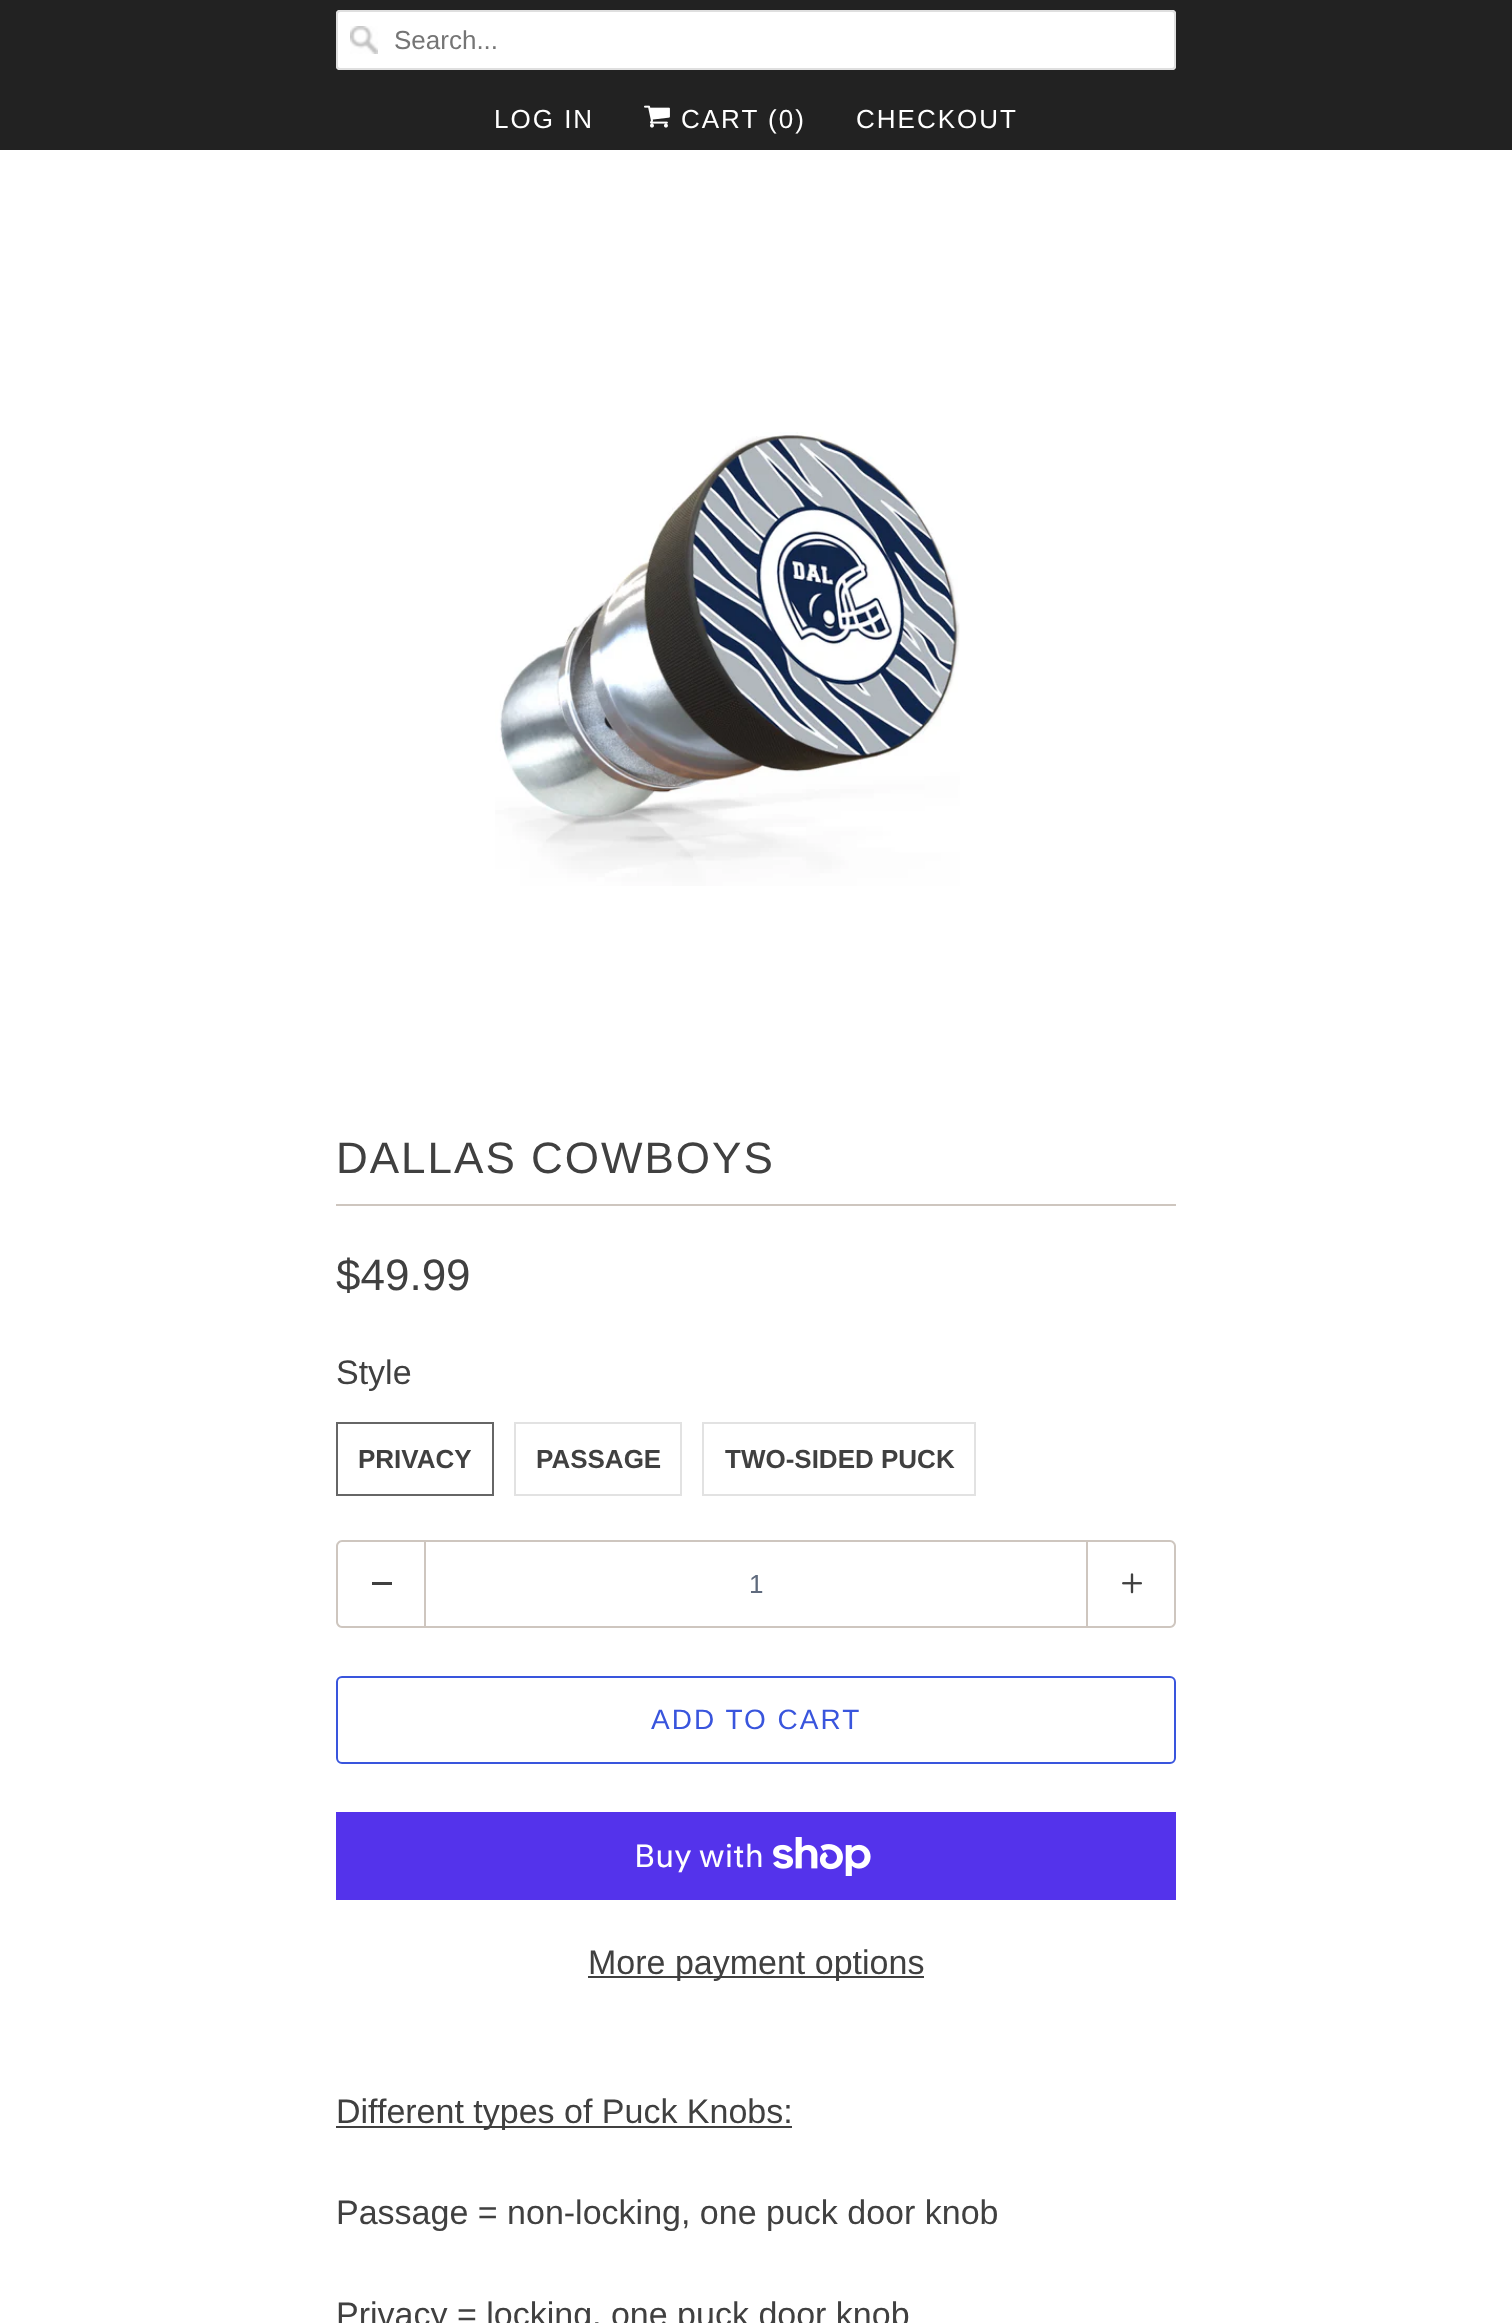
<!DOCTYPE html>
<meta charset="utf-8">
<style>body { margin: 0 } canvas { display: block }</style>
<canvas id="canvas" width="1512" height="2323"></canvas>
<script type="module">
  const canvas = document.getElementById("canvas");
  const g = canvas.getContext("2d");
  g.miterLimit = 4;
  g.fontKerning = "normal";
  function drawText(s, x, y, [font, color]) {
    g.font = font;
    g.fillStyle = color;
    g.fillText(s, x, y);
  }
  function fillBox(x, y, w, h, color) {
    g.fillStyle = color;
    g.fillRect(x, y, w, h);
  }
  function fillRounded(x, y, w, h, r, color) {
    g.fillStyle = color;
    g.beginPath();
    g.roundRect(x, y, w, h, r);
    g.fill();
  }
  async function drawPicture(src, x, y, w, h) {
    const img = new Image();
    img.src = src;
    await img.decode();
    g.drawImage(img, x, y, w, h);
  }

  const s1 = ["26px Liberation Sans", "#757575"];
  const s2 = ["26px Arimo", "#FFFFFF"];
  const s3 = ["44px Arimo", "#404040"];
  const s4 = ["34px Arimo", "#404040"];
  const s5 = ["bold 26px Arimo", "#404040"];
  const s6 = ["26px Liberation Sans", "#5F6A7D"];
  const s7 = ["28px Arimo", "#3955DD"];
  const s8 = ["32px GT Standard", "#FFFFFF"];

  fillBox(0, 0, 1512, 2323, "#FFFFFF");
  fillBox(0, 0, 1512, 150, "#222222");
  fillRounded(336, 10, 840, 60, 4, "#FFFFFF");
  await drawPicture("pic1.png", 350, 26, 28, 28);
  g.beginPath();
  g.roundRect(337, 11, 838, 58, 3);
  g.strokeStyle = "#DFDFDF";
  g.lineWidth = 2;
  g.stroke();
  drawText("Search...", 394, 49, s1);
  g.letterSpacing = "2px";
  drawText("LOG IN", 494, 128, s2);
  await drawPicture("pic2.png", 644, 105, 26, 23);
  drawText("CART (0)", 681, 128, s2);
  drawText("CHECKOUT", 856, 128, s2);
  await drawPicture("pic3.png", 495, 432, 465, 454);
  fillBox(336, 1204, 840, 2, "#CEC6BF");
  drawText("DALLAS COWBOYS", 336, 1173, s3);
  g.letterSpacing = "0px";
  drawText("$49.99", 336, 1290, s3);
  drawText("Style", 336, 1384, s4);
  g.strokeStyle = "#666666";
  g.strokeRect(337, 1423, 156, 72);
  drawText("PRIVACY", 358, 1468, s5);
  g.strokeStyle = "#E2E2E2";
  g.strokeRect(515, 1423, 166, 72);
  drawText("PASSAGE", 536, 1468, s5);
  g.strokeRect(703, 1423, 272, 72);
  drawText("TWO-SIDED PUCK", 725, 1468, s5);
  g.fillStyle = "#CEC6BF";
  g.beginPath();
  g.moveTo(342, 1540);
  g.lineTo(424, 1540);
  g.lineTo(424, 1628);
  g.lineTo(342, 1628);
  g.bezierCurveTo(339, 1628, 336, 1625, 336, 1622);
  g.lineTo(336, 1546);
  g.bezierCurveTo(336, 1543, 339, 1540, 342, 1540);
  g.closePath();
  g.moveTo(342, 1542);
  g.lineTo(424, 1542);
  g.lineTo(424, 1626);
  g.lineTo(342, 1626);
  g.bezierCurveTo(340, 1626, 338, 1624, 338, 1622);
  g.lineTo(338, 1546);
  g.bezierCurveTo(338, 1544, 340, 1542, 342, 1542);
  g.closePath();
  g.fill("evenodd");
  fillBox(372, 1582, 20, 3, "#404040");
  g.strokeStyle = "#CEC6BF";
  g.strokeRect(425, 1541, 662, 86);
  drawText("1", 749, 1593, s6);
  g.fillStyle = "#CEC6BF";
  g.beginPath();
  g.moveTo(1088, 1540);
  g.lineTo(1170, 1540);
  g.bezierCurveTo(1173, 1540, 1176, 1543, 1176, 1546);
  g.lineTo(1176, 1622);
  g.bezierCurveTo(1176, 1625, 1173, 1628, 1170, 1628);
  g.lineTo(1088, 1628);
  g.closePath();
  g.moveTo(1088, 1542);
  g.lineTo(1170, 1542);
  g.bezierCurveTo(1172, 1542, 1174, 1544, 1174, 1546);
  g.lineTo(1174, 1622);
  g.bezierCurveTo(1174, 1624, 1172, 1626, 1170, 1626);
  g.lineTo(1088, 1626);
  g.closePath();
  g.fill("evenodd");
  await drawPicture("pic4.png", 1122, 1573, 20, 21);
  g.beginPath();
  g.roundRect(337, 1677, 838, 86, 5);
  g.strokeStyle = "#3955DD";
  g.stroke();
  g.letterSpacing = "2px";
  drawText("ADD TO CART", 651, 1729, s7);
  fillBox(336, 1812, 840, 88, "#5433EB");
  g.letterSpacing = "0px";
  drawText("Buy with", 634, 1867, s8);
  await drawPicture("pic5.png", 773, 1837, 98, 39);
  fillBox(588, 1976, 336, 2, "#404040");
  drawText("More payment options", 588, 1974, s4);
  fillBox(336, 2126, 456, 2, "#404040");
  drawText("Different types of Puck Knobs:", 336, 2123, s4);
  drawText("Passage = non-locking, one puck door knob", 336, 2224, s4);
  drawText("Privacy = locking, one puck door knob", 336, 2326, s4);
</script>
